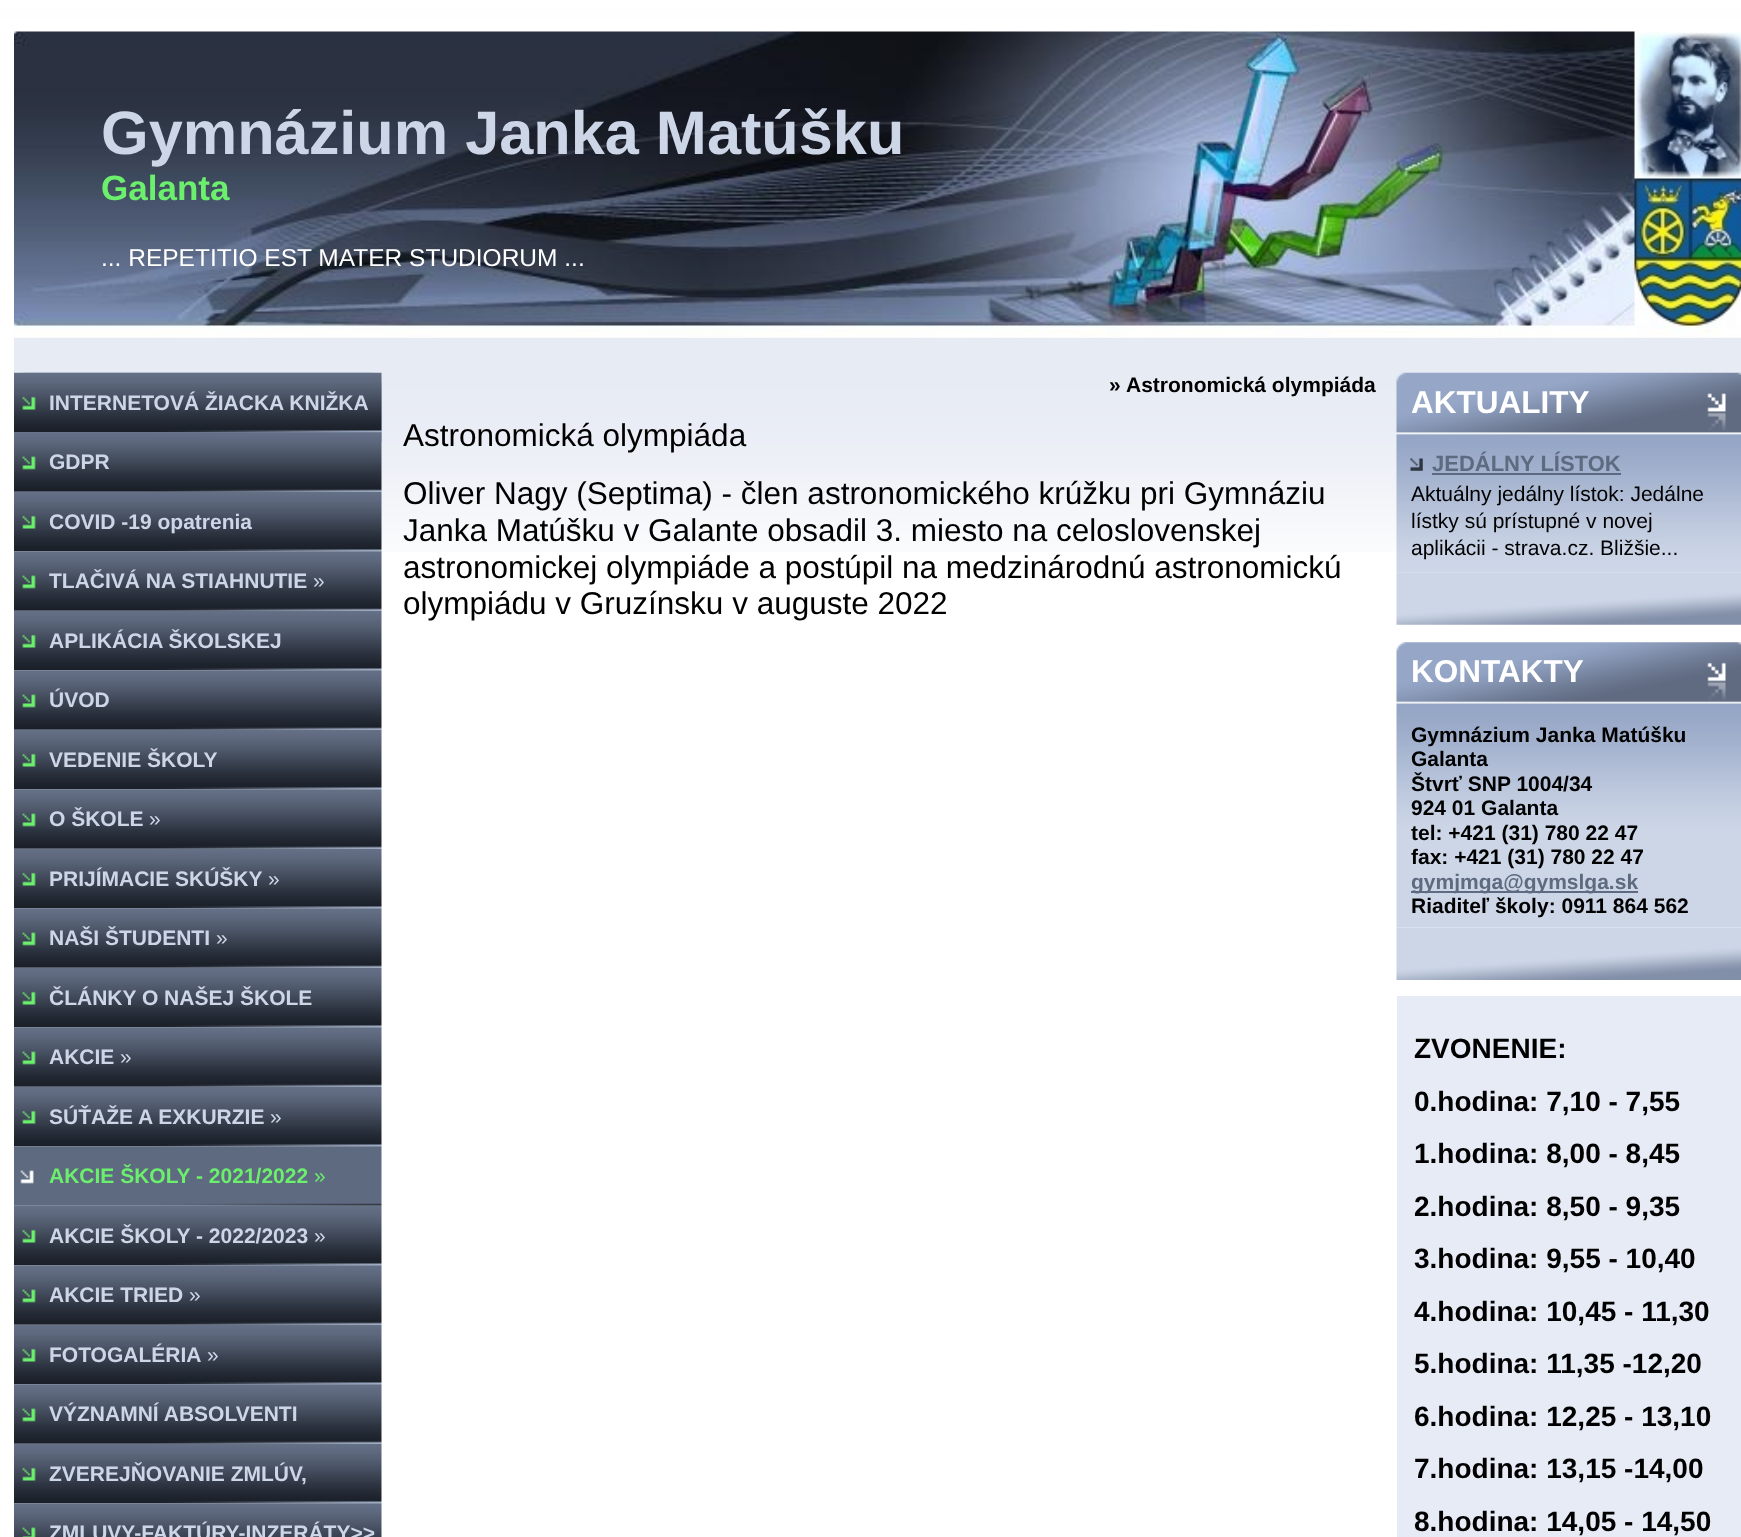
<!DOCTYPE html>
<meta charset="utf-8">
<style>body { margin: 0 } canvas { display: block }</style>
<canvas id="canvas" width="1741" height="1537"></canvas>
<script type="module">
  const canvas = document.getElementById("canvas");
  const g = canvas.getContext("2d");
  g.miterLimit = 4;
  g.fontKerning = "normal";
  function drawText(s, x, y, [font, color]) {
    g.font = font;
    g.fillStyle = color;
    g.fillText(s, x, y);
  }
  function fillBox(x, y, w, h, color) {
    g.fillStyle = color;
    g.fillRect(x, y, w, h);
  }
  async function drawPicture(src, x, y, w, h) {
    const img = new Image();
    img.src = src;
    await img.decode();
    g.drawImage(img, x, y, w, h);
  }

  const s1 = ["bold 61.25px Liberation Sans", "#CDD6E7"];
  const s2 = ["bold 35px Liberation Sans", "#6BEF6D"];
  const s3 = ["24.5px Liberation Sans", "#FFFFFF"];
  const s4 = ["bold 21px Liberation Sans", "#CDD6E7"];
  const s5 = ["21px Liberation Sans", "#CDD6E7"];
  const s6 = ["bold 21px Liberation Sans", "#6BEF6D"];
  const s7 = ["21px Liberation Sans", "#6BEF6D"];
  const s8 = ["bold 21px Liberation Sans", "#000000"];
  const s9 = ["31.5px Liberation Sans", "#000000"];
  const s10 = ["bold 31.5px Liberation Sans", "#FFFFFF"];
  const s11 = ["bold 22px Liberation Sans", "#5E6A7F"];
  const s12 = ["21px Liberation Sans", "#000000"];
  const s13 = ["bold 21px Liberation Sans", "#5E6A7F"];
  const s14 = ["bold 28px Liberation Sans", "#000000"];

  fillBox(0, 0, 1741, 1537, "#FFFFFF");
  await drawPicture("pic1.png", 0, 0, 1741, 18);
  await drawPicture("pic2.png", 14, 31, 1727, 306);
  drawText("Gymnázium Janka Matúšku", 101, 154, s1);
  drawText("Galanta", 101, 200, s2);
  drawText("... REPETITIO EST MATER STUDIORUM ...", 101, 266, s3);
  await drawPicture("pic3.png", 14, 337, 1727, 215);
  await drawPicture("pic4.png", 14, 372, 368, 71);
  await drawPicture("pic5.png", 14, 372, 368, 61);
  drawText("INTERNETOVÁ ŽIACKA KNIŽKA", 49, 410, s4);
  await drawPicture("pic6.png", 14, 432, 368, 60);
  drawText("GDPR", 49, 469, s4);
  await drawPicture("pic7.png", 14, 491, 368, 61);
  drawText("COVID -19 opatrenia", 49, 529, s4);
  await drawPicture("pic8.png", 14, 551, 368, 60);
  drawText("TLAČIVÁ NA STIAHNUTIE", 49, 588, s4);
  drawText("»", 313, 588, s5);
  await drawPicture("pic9.png", 14, 610, 368, 61);
  drawText("APLIKÁCIA ŠKOLSKEJ", 49, 648, s4);
  await drawPicture("pic10.png", 14, 670, 368, 60);
  drawText("ÚVOD", 49, 707, s4);
  await drawPicture("pic9.png", 14, 729, 368, 61);
  drawText("VEDENIE ŠKOLY", 49, 767, s4);
  await drawPicture("pic10.png", 14, 789, 368, 60);
  drawText("O ŠKOLE", 49, 826, s4);
  drawText("»", 149, 826, s5);
  await drawPicture("pic9.png", 14, 848, 368, 61);
  drawText("PRIJÍMACIE SKÚŠKY", 49, 886, s4);
  drawText("»", 268, 886, s5);
  await drawPicture("pic10.png", 14, 908, 368, 60);
  drawText("NAŠI ŠTUDENTI", 49, 945, s4);
  drawText("»", 216, 945, s5);
  await drawPicture("pic9.png", 14, 967, 368, 61);
  drawText("ČLÁNKY O NAŠEJ ŠKOLE", 49, 1005, s4);
  await drawPicture("pic10.png", 14, 1027, 368, 60);
  drawText("AKCIE", 49, 1064, s4);
  drawText("»", 120, 1064, s5);
  await drawPicture("pic9.png", 14, 1086, 368, 61);
  drawText("SÚŤAŽE A EXKURZIE", 49, 1124, s4);
  drawText("»", 270, 1124, s5);
  await drawPicture("pic11.png", 14, 1146, 368, 60);
  drawText("AKCIE ŠKOLY - 2021/2022", 49, 1183, s6);
  drawText("»", 314, 1183, s7);
  await drawPicture("pic12.png", 14, 1205, 368, 61);
  drawText("AKCIE ŠKOLY - 2022/2023", 49, 1243, s4);
  drawText("»", 314, 1243, s5);
  await drawPicture("pic10.png", 14, 1265, 368, 60);
  drawText("AKCIE TRIED", 49, 1302, s4);
  drawText("»", 189, 1302, s5);
  await drawPicture("pic9.png", 14, 1324, 368, 61);
  drawText("FOTOGALÉRIA", 49, 1362, s4);
  drawText("»", 207, 1362, s5);
  await drawPicture("pic10.png", 14, 1384, 368, 60);
  drawText("VÝZNAMNÍ ABSOLVENTI", 49, 1421, s4);
  await drawPicture("pic9.png", 14, 1443, 368, 61);
  drawText("ZVEREJŇOVANIE ZMLÚV,", 49, 1481, s4);
  await drawPicture("pic13.png", 14, 1503, 368, 34);
  drawText("ZMLUVY-FAKTÚRY-INZERÁTY>>", 49, 1540, s4);
  drawText("»", 1109, 392, s8);
  drawText("Astronomická olympiáda", 1126, 392, s8);
  drawText("Astronomická olympiáda", 403, 446, s9);
  drawText("Oliver Nagy (Septima) - člen astronomického krúžku pri Gymnáziu", 403, 504, s9);
  drawText("Janka Matúšku v Galante obsadil 3. miesto na celoslovenskej", 403, 541, s9);
  drawText("astronomickej olympiáde a postúpil na medzinárodnú astronomickú", 403, 578, s9);
  drawText("olympiádu v Gruzínsku v auguste 2022", 403, 614, s9);
  await drawPicture("pic14.png", 1396, 372, 345, 201);
  drawText("AKTUALITY", 1411, 413, s10);
  await drawPicture("pic15.png", 1410, 458, 13, 13);
  drawText("JEDÁLNY LÍSTOK", 1432, 471, s11);
  fillBox(1432, 473, 189, 2, "#5E6A7F");
  drawText("Aktuálny jedálny lístok: Jedálne", 1411, 501, s12);
  drawText("lístky sú prístupné v novej", 1411, 528, s12);
  drawText("aplikácii - strava.cz. Bližšie...", 1411, 555, s12);
  await drawPicture("pic16.png", 1396, 572, 345, 53);
  await drawPicture("pic17.png", 1396, 642, 345, 286);
  drawText("KONTAKTY", 1411, 682, s10);
  drawText("Gymnázium Janka Matúšku", 1411, 742, s8);
  drawText("Galanta", 1411, 766, s8);
  drawText("Štvrť SNP 1004/34", 1411, 791, s8);
  drawText("924 01 Galanta", 1411, 815, s8);
  drawText("tel: +421 (31) 780 22 47", 1411, 840, s8);
  drawText("fax: +421 (31) 780 22 47", 1411, 864, s8);
  fillBox(1411, 891, 227, 2, "#5E6A7F");
  drawText("gymjmga@gymslga.sk", 1411, 889, s13);
  drawText("Riaditeľ školy: 0911 864 562", 1411, 913, s8);
  await drawPicture("pic18.png", 1396, 927, 345, 53);
  fillBox(1397, 996, 344, 541, "#E6EBF5");
  drawText("ZVONENIE:", 1414, 1058, s14);
  drawText("0.hodina: 7,10 - 7,55", 1414, 1111, s14);
  drawText("1.hodina: 8,00 - 8,45", 1414, 1163, s14);
  drawText("2.hodina: 8,50 - 9,35", 1414, 1216, s14);
  drawText("3.hodina: 9,55 - 10,40", 1414, 1268, s14);
  drawText("4.hodina: 10,45 - 11,30", 1414, 1321, s14);
  drawText("5.hodina: 11,35 -12,20", 1414, 1373, s14);
  drawText("6.hodina: 12,25 - 13,10", 1414, 1426, s14);
  drawText("7.hodina: 13,15 -14,00", 1414, 1478, s14);
  drawText("8.hodina: 14,05 - 14,50", 1414, 1531, s14);
</script>
